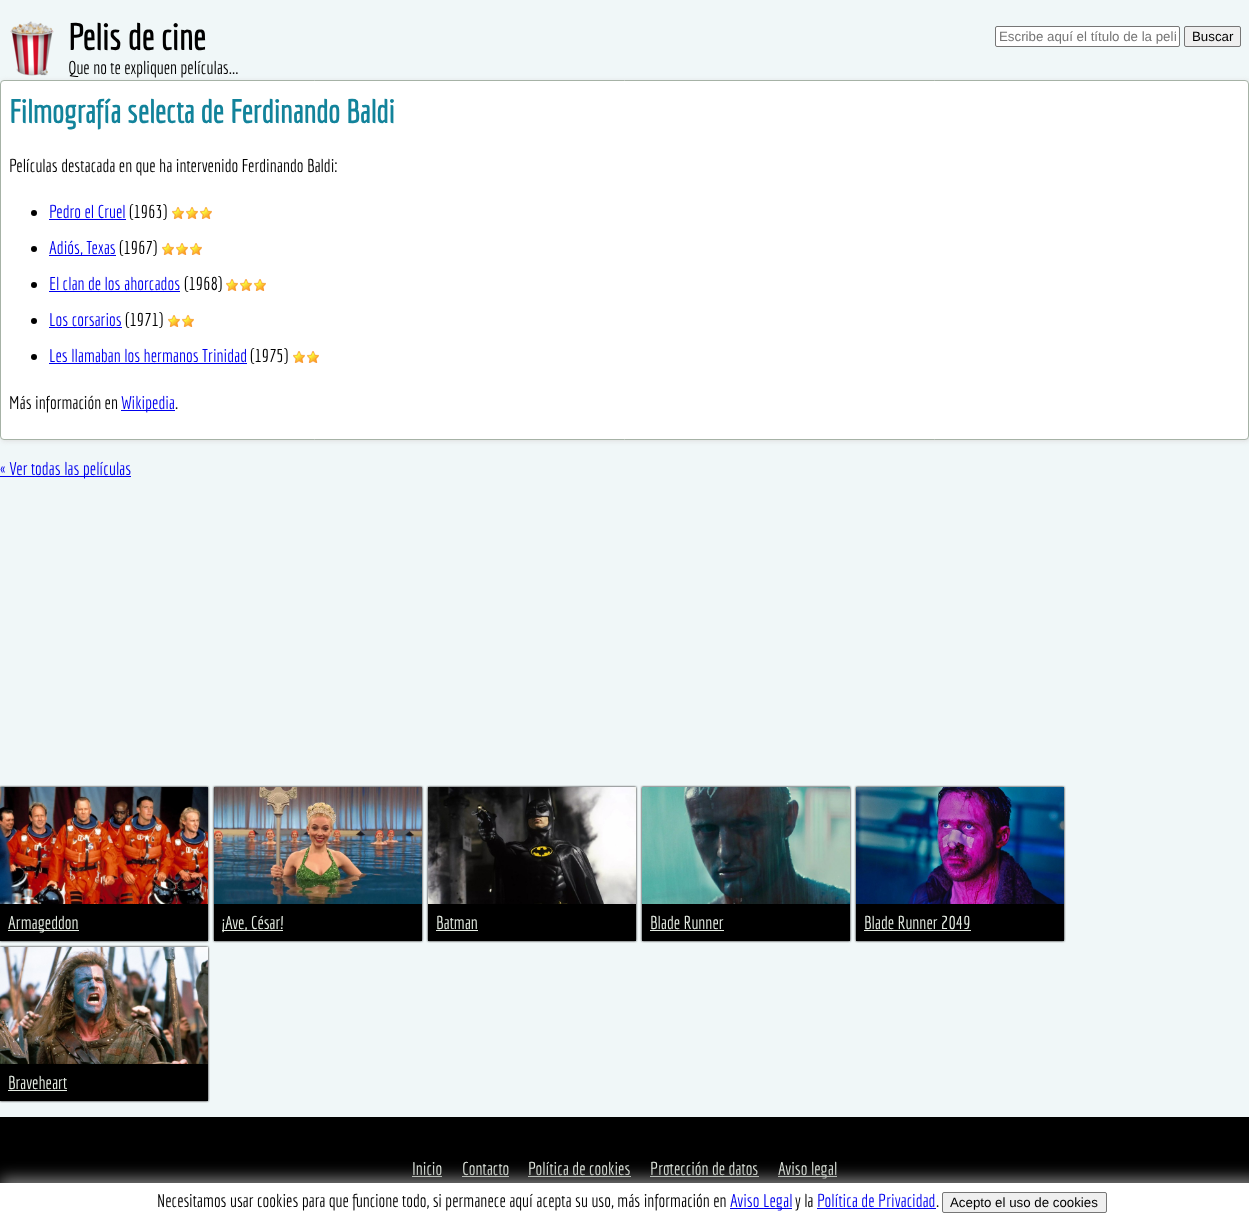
<!DOCTYPE html>
<meta charset="utf-8">
<style>body { margin: 0 } canvas { display: block }</style>
<canvas id="canvas" width="1249" height="1220"></canvas>
<script type="module">
  const canvas = document.getElementById("canvas");
  const g = canvas.getContext("2d");
  g.miterLimit = 4;
  g.fontKerning = "normal";
  function drawText(s, x, y, [font, color]) {
    g.font = font;
    g.fillStyle = color;
    g.fillText(s, x, y);
  }
  function fillBox(x, y, w, h, color) {
    g.fillStyle = color;
    g.fillRect(x, y, w, h);
  }
  async function drawPicture(src, x, y, w, h) {
    const img = new Image();
    img.src = src;
    await img.decode();
    g.drawImage(img, x, y, w, h);
  }

  const s1 = ["bold 36px Economica", "#000000"];
  const s2 = ["18px Economica", "#000000"];
  const s3 = ["13.3px Liberation Sans", "#757575"];
  const s4 = ["13.3px Liberation Sans", "#000000"];
  const s5 = ["bold 32px Economica", "#12839B"];
  const s6 = ["18px Economica", "#0000EE"];
  const s7 = ["18px Economica", "#E6EDE4"];

  fillBox(0, 0, 1249, 1220, "#F0F7F8");
  g.fillStyle = "#DDDDDD";
  g.filter = "blur(2.5px)";
  g.beginPath();
  g.roundRect(1, 81, 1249, 360, 4);
  g.fill();
  g.filter = "none";
  await drawPicture("pic1.png", 10, 21, 44, 55);
  drawText("Pelis de cine", 68, 50, s1);
  drawText("Que no te expliquen películas...", 68, 74, s2);
  g.fillStyle = "#FFFFFF";
  g.beginPath();
  g.roundRect(995.5, 26.5, 184, 20, 1.5);
  g.fill();
  g.strokeStyle = "#767676";
  g.stroke();
  g.save();
  g.beginPath();
  g.rect(999, 29, 177, 15);
  g.clip();
  drawText("Escribe aquí el título de la pelí", 999, 41, s3);
  g.restore();
  g.fillStyle = "#EFEFEF";
  g.beginPath();
  g.roundRect(1184.5, 26.5, 56, 20, 1.5);
  g.fill();
  g.stroke();
  drawText("Buscar", 1192, 41, s4);
  g.fillStyle = "#FFFFFF";
  g.beginPath();
  g.roundRect(0.5, 80.5, 1248, 359, 3.5);
  g.fill();
  g.strokeStyle = "#A6B2A6";
  g.stroke();
  drawText("Filmografía selecta de Ferdinando Baldi", 9, 123, s5);
  drawText("Películas destacada en que ha intervenido Ferdinando Baldi:", 9, 172, s2);
  g.beginPath();
  g.arc(34, 213, 3, 0, Math.PI * 2);
  g.fill();
  drawText("Pedro el Cruel", 49, 218, s6);
  fillBox(49, 219, 77, 1, "#0000EE");
  drawText("(1963)", 129, 218, s2);
  await drawPicture("pic2.png", 172, 207, 12, 12);
  await drawPicture("pic3.png", 186, 207, 12, 12);
  await drawPicture("pic2.png", 200, 207, 12, 12);
  g.beginPath();
  g.arc(34, 249, 3, 0, Math.PI * 2);
  g.fill();
  fillBox(49, 255, 67, 1, "#0000EE");
  drawText("Adiós, Texas", 49, 254, s6);
  drawText("(1967)", 119, 254, s2);
  await drawPicture("pic3.png", 162, 243, 12, 12);
  await drawPicture("pic3.png", 176, 243, 12, 12);
  await drawPicture("pic2.png", 190, 243, 12, 12);
  g.beginPath();
  g.arc(34, 285, 3, 0, Math.PI * 2);
  g.fill();
  drawText("El clan de los ahorcados", 49, 290, s6);
  fillBox(49, 291, 131, 1, "#0000EE");
  drawText("(1968)", 184, 290, s2);
  await drawPicture("pic2.png", 226, 279, 12, 12);
  await drawPicture("pic3.png", 240, 279, 12, 12);
  await drawPicture("pic3.png", 254, 279, 12, 12);
  g.beginPath();
  g.arc(34, 321, 3, 0, Math.PI * 2);
  g.fill();
  drawText("Los corsarios", 49, 326, s6);
  fillBox(49, 327, 73, 1, "#0000EE");
  drawText("(1971)", 125, 326, s2);
  await drawPicture("pic3.png", 168, 315, 12, 12);
  await drawPicture("pic3.png", 182, 315, 12, 12);
  g.beginPath();
  g.arc(34, 357, 3, 0, Math.PI * 2);
  g.fill();
  drawText("Les llamaban los hermanos Trinidad", 49, 362, s6);
  fillBox(49, 363, 198, 1, "#0000EE");
  drawText("(1975)", 250, 362, s2);
  await drawPicture("pic3.png", 293, 351, 12, 12);
  await drawPicture("pic2.png", 307, 351, 12, 12);
  drawText("Más información en", 9, 409, s2);
  fillBox(121, 410, 54, 1, "#0000EE");
  drawText("Wikipedia", 121, 409, s6);
  drawText(".", 175, 409, s2);
  fillBox(0, 476, 131, 1, "#0000EE");
  drawText("« Ver todas las películas", 0, 475, s6);
  g.fillStyle = "#000000";
  g.filter = "blur(1px)";
  g.beginPath();
  g.rect(0, 787, 208, 154);
  g.fill();
  g.filter = "none";
  await drawPicture("pic4.png", 0, 787, 208, 117);
  fillBox(0, 904, 208, 37, "#000000");
  fillBox(8, 930, 71, 1, "#E6EDE4");
  drawText("Armageddon", 8, 929, s7);
  g.fillStyle = "#000000";
  g.filter = "blur(1px)";
  g.beginPath();
  g.rect(214, 787, 208, 154);
  g.fill();
  g.filter = "none";
  await drawPicture("pic5.png", 214, 787, 208, 117);
  fillBox(214, 904, 208, 37, "#000000");
  fillBox(222, 930, 61, 1, "#E6EDE4");
  drawText("¡Ave, César!", 222, 929, s7);
  g.fillStyle = "#000000";
  g.filter = "blur(1px)";
  g.beginPath();
  g.rect(428, 787, 208, 154);
  g.fill();
  g.filter = "none";
  await drawPicture("pic6.png", 428, 787, 208, 117);
  fillBox(428, 904, 208, 37, "#000000");
  drawText("Batman", 436, 929, s7);
  fillBox(436, 930, 42, 1, "#E6EDE4");
  g.fillStyle = "#000000";
  g.filter = "blur(1px)";
  g.beginPath();
  g.rect(642, 787, 208, 154);
  g.fill();
  g.filter = "none";
  await drawPicture("pic7.png", 642, 787, 208, 117);
  fillBox(642, 904, 208, 37, "#000000");
  drawText("Blade Runner", 650, 929, s7);
  fillBox(650, 930, 74, 1, "#E6EDE4");
  g.fillStyle = "#000000";
  g.filter = "blur(1px)";
  g.beginPath();
  g.rect(856, 787, 208, 154);
  g.fill();
  g.filter = "none";
  await drawPicture("pic8.png", 856, 787, 208, 117);
  fillBox(856, 904, 208, 37, "#000000");
  drawText("Blade Runner 2049", 864, 929, s7);
  fillBox(864, 930, 107, 1, "#E6EDE4");
  g.fillStyle = "#000000";
  g.filter = "blur(1px)";
  g.beginPath();
  g.rect(0, 947, 208, 154);
  g.fill();
  g.filter = "none";
  await drawPicture("pic9.png", 0, 947, 208, 117);
  fillBox(0, 1064, 208, 37, "#000000");
  drawText("Braveheart", 8, 1089, s7);
  fillBox(8, 1090, 59, 1, "#E6EDE4");
  fillBox(0, 1117, 1249, 66, "#000000");
  drawText("Inicio", 412, 1175, s7);
  fillBox(412, 1176, 30, 1, "#E6EDE4");
  drawText("Contacto", 462, 1175, s7);
  fillBox(462, 1176, 47, 1, "#E6EDE4");
  drawText("Política de cookies", 528, 1175, s7);
  fillBox(528, 1176, 103, 1, "#E6EDE4");
  drawText("Protección de datos", 650, 1175, s7);
  fillBox(650, 1176, 109, 1, "#E6EDE4");
  fillBox(778, 1176, 59, 1, "#E6EDE4");
  drawText("Aviso legal", 778, 1175, s7);
  g.fillStyle = "#808080";
  g.filter = "blur(7.5px)";
  g.beginPath();
  g.rect(0, 1178, 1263, 37);
  g.fill();
  g.filter = "none";
  fillBox(0, 1183, 1249, 37, "#FFFFFF");
  drawText("Necesitamos usar cookies para que funcione todo, si permanece aquí acepta su uso, más información en", 157, 1207, s2);
  fillBox(730, 1208, 62, 1, "#0000EE");
  drawText("Aviso Legal", 730, 1207, s6);
  drawText("y la", 795, 1207, s2);
  drawText("Política de Privacidad", 817, 1207, s6);
  fillBox(817, 1208, 119, 1, "#0000EE");
  drawText(".", 936, 1207, s2);
  g.fillStyle = "#EFEFEF";
  g.beginPath();
  g.roundRect(942.5, 1192.5, 164, 20, 1.5);
  g.fill();
  g.strokeStyle = "#767676";
  g.stroke();
  drawText("Acepto el uso de cookies", 950, 1207, s4);
</script>
